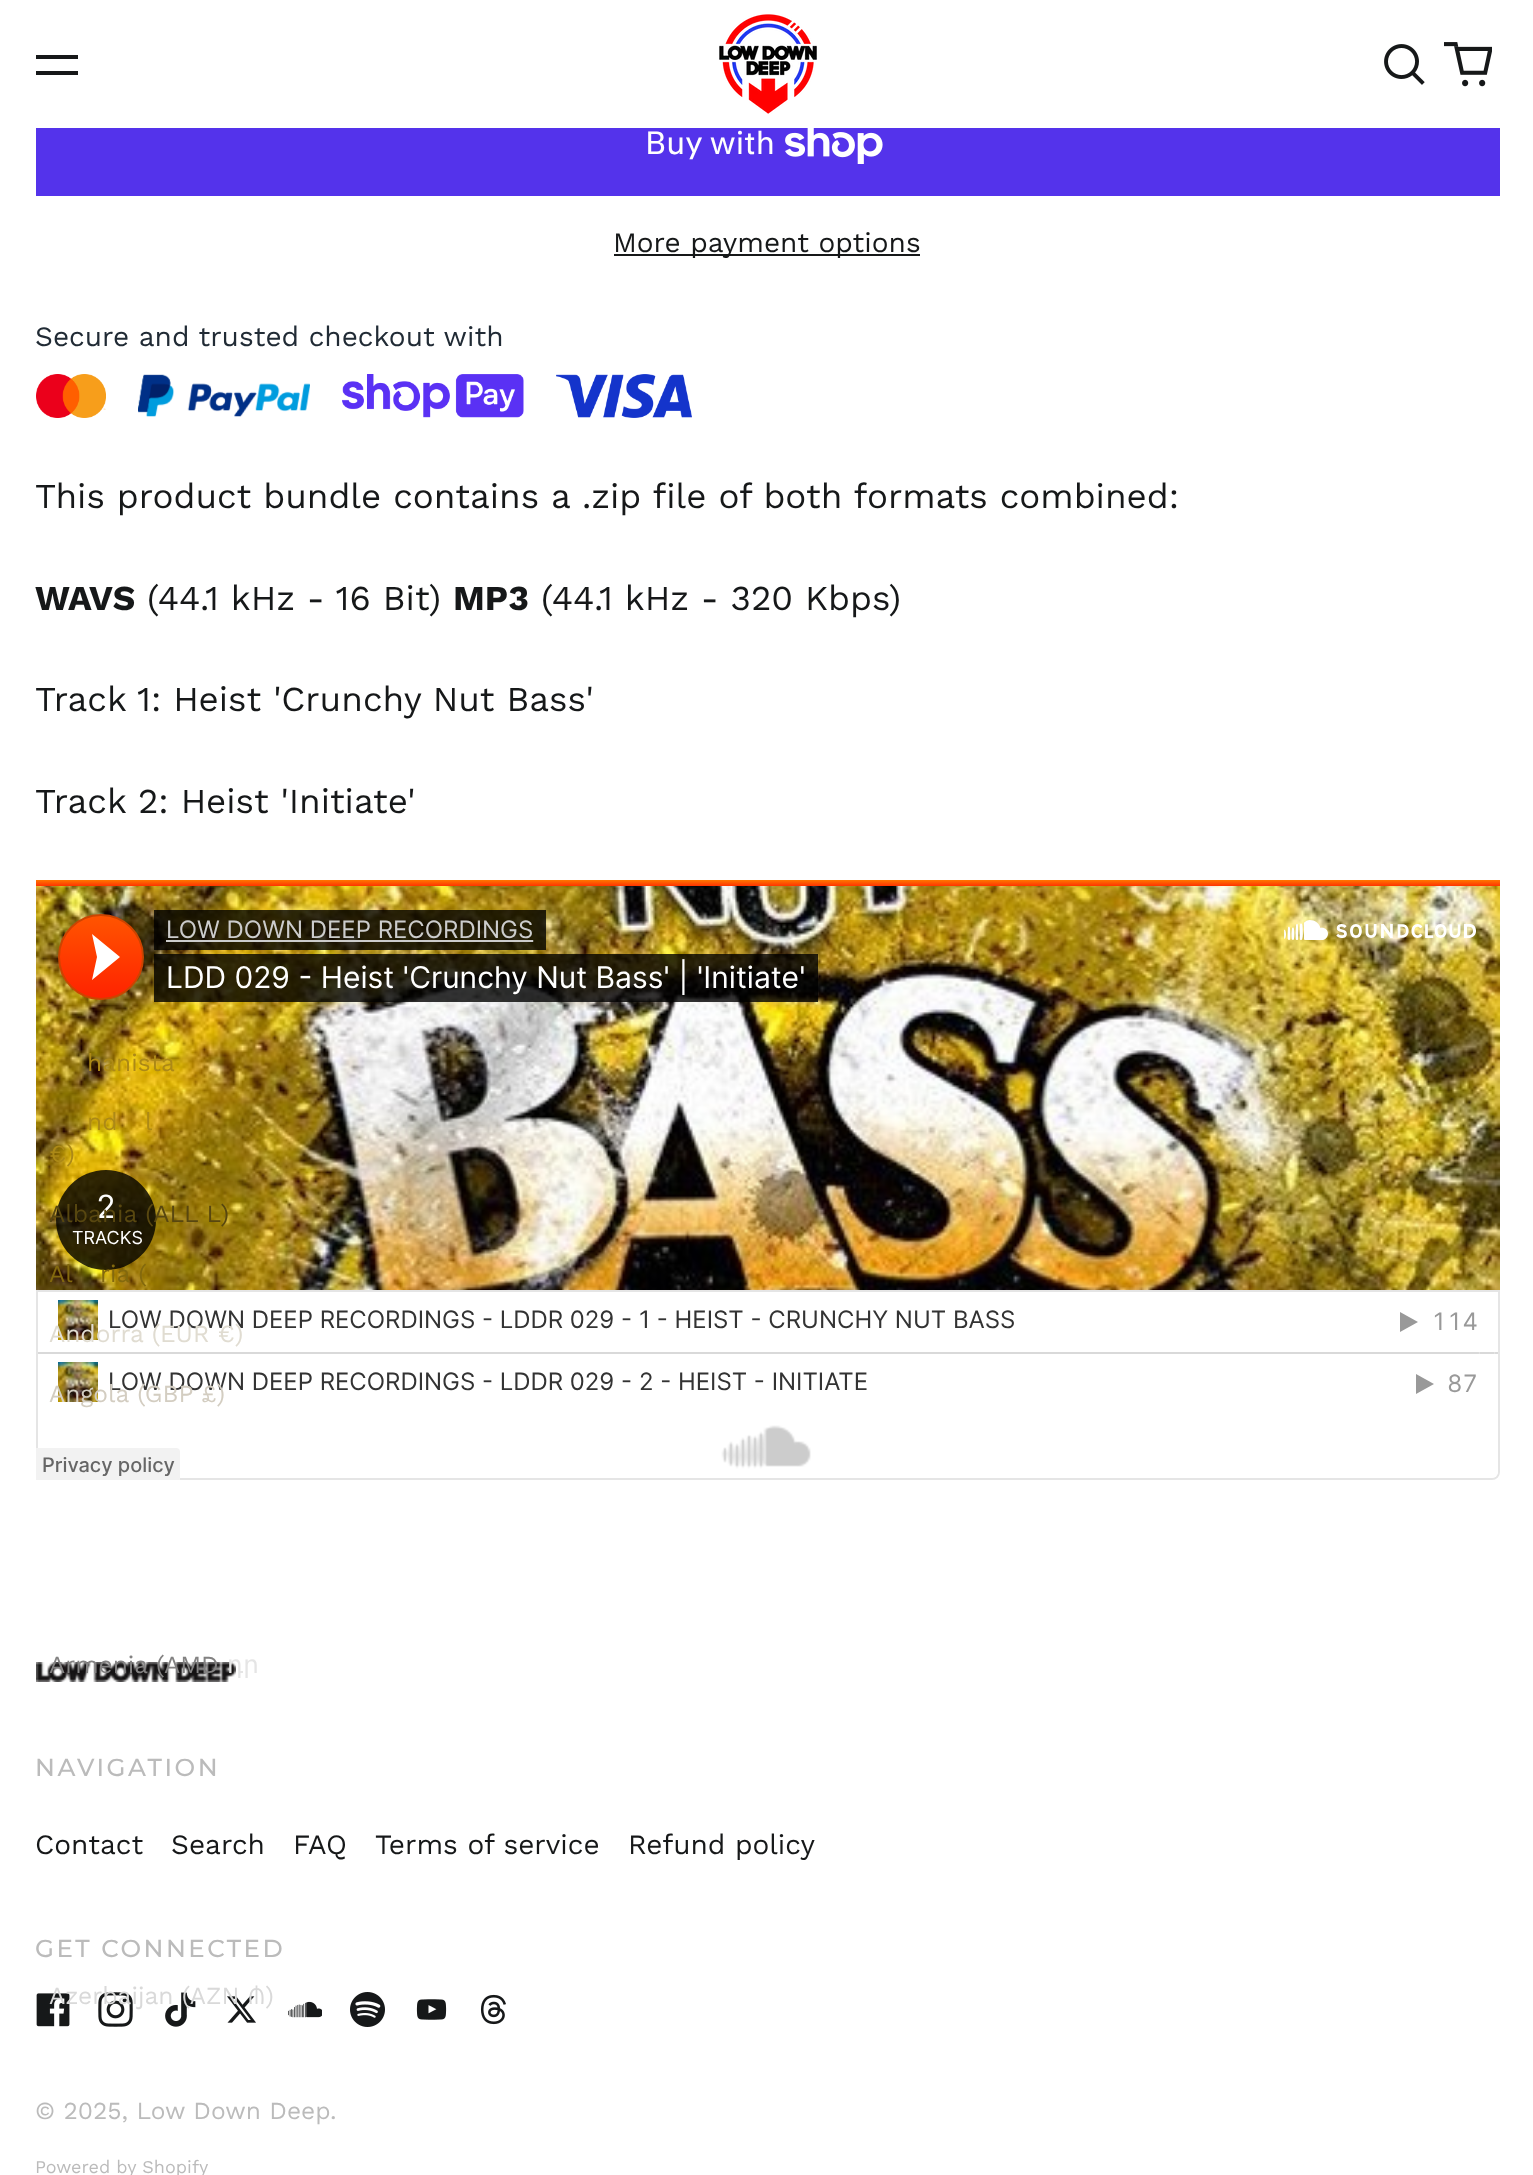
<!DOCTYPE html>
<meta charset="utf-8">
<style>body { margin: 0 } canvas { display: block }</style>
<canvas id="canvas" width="1533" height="2175"></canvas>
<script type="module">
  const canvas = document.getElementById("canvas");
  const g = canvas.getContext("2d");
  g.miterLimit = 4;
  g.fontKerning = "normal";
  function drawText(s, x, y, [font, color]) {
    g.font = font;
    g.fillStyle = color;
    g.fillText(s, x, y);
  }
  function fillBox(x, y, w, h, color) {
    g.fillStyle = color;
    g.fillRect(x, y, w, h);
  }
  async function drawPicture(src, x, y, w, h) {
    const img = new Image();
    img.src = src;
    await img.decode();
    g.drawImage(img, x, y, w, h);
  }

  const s1 = ["32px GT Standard", "#FFFFFF"];
  const s2 = ["28px Work Sans", "#161819"];
  const s3 = ["28px Work Sans", "#212B35"];
  const s4 = ["35px Work Sans", "#161819"];
  const s5 = ["bold 35px Work Sans", "#161819"];
  const s6 = ["24.5px Work Sans", "#AC8917"];
  const s7 = ["24.5px Work Sans", "#584710"];
  const s8 = ["24.5px Work Sans", "#83690E"];
  const s9 = ["24.5px Work Sans", "#E0DCD1"];
  const s10 = ["24.5px Work Sans", "#D3CDC1"];
  const s11 = ["24.5px Work Sans", "#838282"];
  const s12 = ["24.5px DejaVu Sans", "#E5E5E5"];
  const s13 = ["24.5px Work Sans", "#D9D9D9"];
  const s14 = ["24.5px Work Sans", "#BBBBBB"];
  const s15 = ["18px Work Sans", "#BBBBBB"];
  const s16 = ["500 24.5px Montserrat", "#BBBBBB"];

  fillBox(0, 0, 1533, 2175, "#FFFFFF");
  g.fillStyle = "#161819";
  g.beginPath();
  g.moveTo(78, 71);
  g.lineTo(78, 75);
  g.lineTo(36, 75);
  g.lineTo(36, 71);
  g.closePath();
  g.moveTo(78, 55);
  g.lineTo(78, 59);
  g.lineTo(36, 59);
  g.lineTo(36, 55);
  g.closePath();
  g.fill("evenodd");
  await drawPicture("pic1.png", 719, 14, 98, 100);
  await drawPicture("pic2.png", 1384, 44, 41, 41);
  await drawPicture("pic3.png", 1444, 42, 48, 45);
  fillBox(36, 128, 1464, 68, "#5433EB");
  drawText("Buy with", 645, 154, s1);
  await drawPicture("pic4.png", 785, 128, 98, 36);
  fillBox(614, 254, 306, 2, "#161819");
  drawText("More payment options", 613, 252, s2);
  drawText("Secure and trusted checkout with", 35, 346, s3);
  await drawPicture("pic5.png", 36, 374, 70, 44);
  await drawPicture("pic6.png", 138, 374, 172, 43);
  await drawPicture("pic7.png", 342, 374, 182, 44);
  await drawPicture("pic8.png", 556, 374, 136, 44);
  drawText("This product bundle contains a .zip file of both formats combined:", 35, 508, s4);
  drawText("WAVS", 35, 610, s5);
  drawText("(44.1 kHz - 16 Bit)", 147, 610, s4);
  drawText("MP3", 453, 610, s5);
  drawText("(44.1 kHz - 320 Kbps)", 541, 610, s4);
  drawText("Track 1: Heist 'Crunchy Nut Bass'", 35, 711, s4);
  drawText("Track 2: Heist 'Initiate'", 35, 813, s4);
  await drawPicture("pic9.png", 36, 880, 1464, 600);
  drawText("hanista", 87, 1071, s6);
  drawText("nd", 87, 1130, s6);
  drawText("l", 145, 1130, s6);
  drawText("€)", 49, 1162, s6);
  drawText("Albania (ALL L)", 49, 1222, s7);
  drawText("Al", 49, 1282, s8);
  drawText("ria (", 100, 1282, s8);
  drawText("Andorra (EUR €)", 49, 1342, s9);
  drawText("Angola (GBP £)", 49, 1402, s10);
  await drawPicture("pic10.png", 36, 1662, 200, 20);
  drawText("Armenia (AMD", 49, 1673, s11);
  drawText("դր", 227, 1673, s12);
  await drawPicture("pic11.png", 36, 1993, 34, 34);
  await drawPicture("pic12.png", 98, 1992, 35, 35);
  await drawPicture("pic13.png", 165, 1992, 31, 35);
  await drawPicture("pic14.png", 227, 1996, 29, 27);
  drawText("Azerbaijan (AZN ₼)", 49, 2004, s13);
  drawText("© 2025, Low Down Deep", 35, 2119, s14);
  drawText(".", 330, 2119, s14);
  drawText("Powered by Shopify", 35, 2173, s15);
  g.letterSpacing = "2.5px";
  drawText("NAVIGATION", 35, 1776, s16);
  g.letterSpacing = "0px";
  drawText("Contact", 35, 1854, s2);
  drawText("Search", 171, 1854, s2);
  drawText("FAQ", 293, 1854, s2);
  drawText("Terms of service", 375, 1854, s2);
  drawText("Refund policy", 628, 1854, s2);
  g.letterSpacing = "2.5px";
  drawText("GET CONNECTED", 35, 1957, s16);
  await drawPicture("pic15.png", 288, 2001, 34, 17);
  await drawPicture("pic16.png", 350, 1992, 35, 35);
  await drawPicture("pic17.png", 416, 1999, 31, 21);
  await drawPicture("pic18.png", 480, 1994, 26, 31);
</script>
